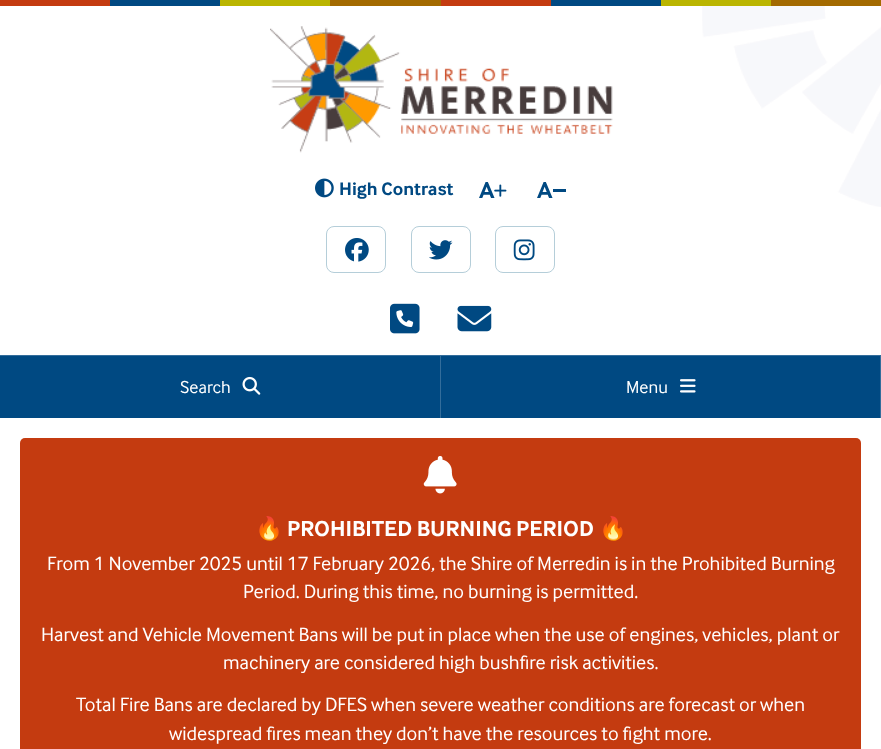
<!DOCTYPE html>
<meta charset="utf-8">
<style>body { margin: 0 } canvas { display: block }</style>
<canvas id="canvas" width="881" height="749"></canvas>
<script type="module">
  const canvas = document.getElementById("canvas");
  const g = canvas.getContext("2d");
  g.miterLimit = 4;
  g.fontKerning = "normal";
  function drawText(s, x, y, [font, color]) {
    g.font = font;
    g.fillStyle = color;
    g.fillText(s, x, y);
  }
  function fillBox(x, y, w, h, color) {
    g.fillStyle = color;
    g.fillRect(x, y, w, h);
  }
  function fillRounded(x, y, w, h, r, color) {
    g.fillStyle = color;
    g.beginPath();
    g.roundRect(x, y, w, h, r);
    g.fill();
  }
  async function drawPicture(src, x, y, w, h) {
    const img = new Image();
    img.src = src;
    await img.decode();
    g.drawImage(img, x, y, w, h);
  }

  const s1 = ["bold 18.75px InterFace", "#004982"];
  const s2 = ["bold 24px InterFace", "#004982"];
  const s3 = ["18px InterFace", "#FFFFFF"];
  const s4 = ["bold 22.5px Noto Color Emoji", "#FFFFFF"];
  const s5 = ["bold 22.5px InterFace", "#FFFFFF"];
  const s6 = ["20px InterFace", "#FFFFFF"];

  fillBox(0, 0, 881, 749, "#FFFFFF");
  fillBox(0, 0, 110, 6, "#C43B10");
  fillBox(110, 0, 110, 6, "#004982");
  fillBox(220, 0, 110, 6, "#BAB500");
  fillBox(330, 0, 111, 6, "#A36A00");
  fillBox(441, 0, 110, 6, "#C43B10");
  fillBox(551, 0, 110, 6, "#004982");
  fillBox(661, 0, 110, 6, "#BAB500");
  fillBox(771, 0, 110, 6, "#A36A00");
  await drawPicture("pic1.png", 702, 6, 179, 201);
  await drawPicture("pic2.png", 270, 26, 343, 127);
  await drawPicture("pic3.png", 315, 178, 19, 20);
  drawText("High Contrast", 339, 195, s1);
  drawText("A", 479, 198, s2);
  await drawPicture("pic4.png", 494, 184, 13, 13);
  drawText("A", 537, 198, s2);
  fillBox(553, 189, 13, 3, "#004982");
  g.beginPath();
  g.roundRect(326.5, 226.5, 59, 46, 7.5);
  g.strokeStyle = "#B5CED9";
  g.stroke();
  await drawPicture("pic5.png", 345, 238, 24, 24);
  g.beginPath();
  g.roundRect(411.5, 226.5, 59, 46, 7.5);
  g.stroke();
  await drawPicture("pic6.png", 429, 240, 24, 20);
  g.beginPath();
  g.roundRect(495.5, 226.5, 59, 46, 7.5);
  g.stroke();
  await drawPicture("pic7.png", 513, 239, 22, 22);
  await drawPicture("pic8.png", 390, 303, 30, 31);
  await drawPicture("pic9.png", 457, 305, 35, 27);
  fillBox(0, 356, 880, 62, "#004982");
  fillBox(0, 355, 881, 1, "#336D9B");
  fillBox(440, 356, 1, 62, "#336D9B");
  drawText("Search", 180, 393, s3);
  await drawPicture("pic10.png", 242, 376, 19, 19);
  fillBox(880, 356, 1, 62, "#336D9B");
  drawText("Menu", 626, 393, s3);
  await drawPicture("pic11.png", 680, 379, 16, 14);
  fillRounded(20, 438, 841, 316, 5, "#C43B10");
  await drawPicture("pic12.png", 423, 456, 34, 38);
  drawText("🔥", 255, 536, s4);
  drawText("PROHIBITED BURNING PERIOD", 287, 536, s5);
  drawText("🔥", 599, 536, s4);
  drawText("From 1 November 2025 until 17 February 2026, the Shire of Merredin is in the Prohibited Burning", 47, 570, s6);
  drawText("Period. During this time, no burning is permitted.", 243, 598, s6);
  drawText("Harvest and Vehicle Movement Bans will be put in place when the use of engines, vehicles, plant or", 41, 641, s6);
  drawText("machinery are considered high bushfire risk activities.", 223, 669, s6);
  drawText("Total Fire Bans are declared by DFES when severe weather conditions are forecast or when", 76, 711, s6);
  drawText("widespread fires mean they don’t have the resources to fight more.", 169, 740, s6);
</script>
